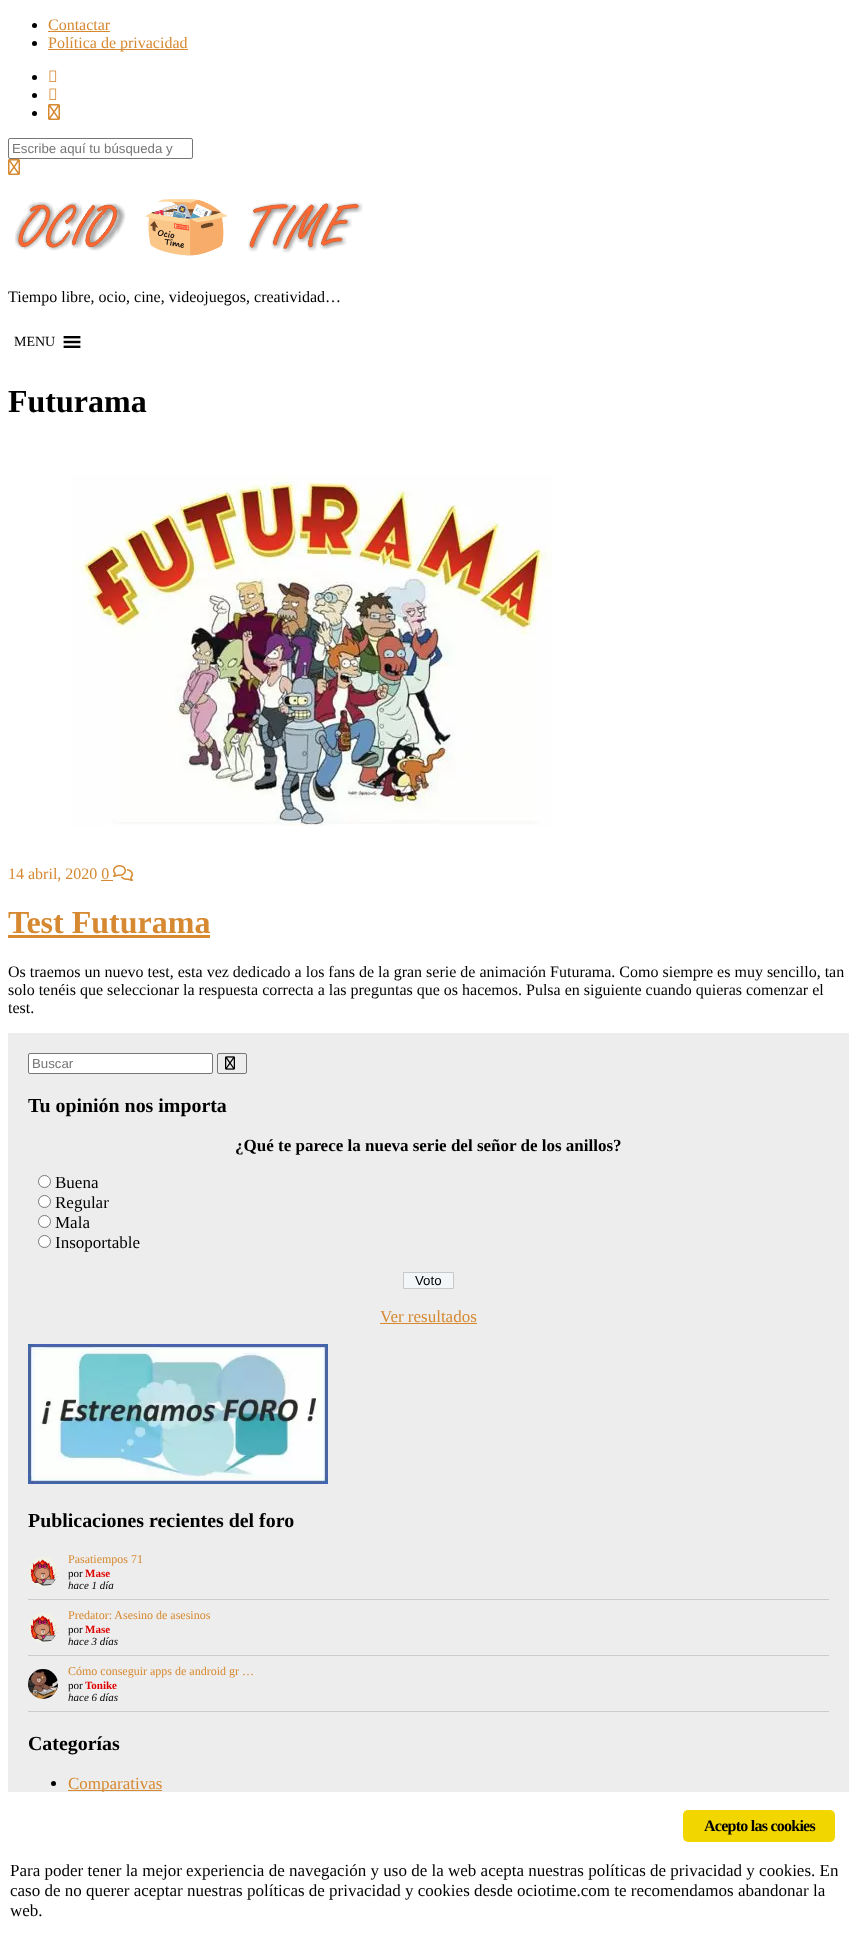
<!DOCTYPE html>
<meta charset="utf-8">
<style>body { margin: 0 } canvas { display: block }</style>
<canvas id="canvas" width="857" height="1948"></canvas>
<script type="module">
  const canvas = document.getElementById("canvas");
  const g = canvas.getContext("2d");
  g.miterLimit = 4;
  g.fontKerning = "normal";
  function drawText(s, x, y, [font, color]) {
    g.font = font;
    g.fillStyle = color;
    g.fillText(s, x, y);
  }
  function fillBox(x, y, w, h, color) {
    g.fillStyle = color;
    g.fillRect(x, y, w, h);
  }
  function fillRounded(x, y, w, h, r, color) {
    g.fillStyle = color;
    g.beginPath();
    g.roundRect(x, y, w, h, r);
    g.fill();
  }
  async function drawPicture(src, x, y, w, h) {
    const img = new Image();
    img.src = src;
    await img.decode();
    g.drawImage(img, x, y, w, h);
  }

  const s1 = ["16px Liberation Serif", "#D68931"];
  const s2 = ["13.25px Liberation Sans", "#757575"];
  const s3 = ["16px Liberation Serif", "#000000"];
  const s4 = ["14px Liberation Serif", "#000000"];
  const s5 = ["bold 32px Liberation Serif", "#000000"];
  const s6 = ["bold 32px Liberation Serif", "#D68931"];
  const s7 = ["bold 19.9px Liberation Serif", "#000000"];
  const s8 = ["bold 17px Liberation Serif", "#000000"];
  const s9 = ["17px Liberation Serif", "#000000"];
  const s10 = ["13.25px Liberation Sans", "#000000"];
  const s11 = ["17px Liberation Serif", "#D68931"];
  const s12 = ["12px Liberation Serif", "#D68931"];
  const s13 = ["11px Liberation Serif", "#000000"];
  const s14 = ["bold 11px Liberation Serif", "#E00000"];
  const s15 = ["italic 11px Liberation Serif", "#000000"];
  const s16 = ["bold 16px Liberation Serif", "#000000"];

  fillBox(0, 0, 857, 1948, "#FFFFFF");
  g.fillStyle = "#000000";
  g.beginPath();
  g.arc(34.5, 25.5, 2.5, 0, Math.PI * 2);
  g.fill();
  drawText("Contactar", 48, 30, s1);
  fillBox(48, 31, 62, 1, "#D68931");
  g.fillStyle = "#000000";
  g.beginPath();
  g.arc(34.5, 43.5, 2.5, 0, Math.PI * 2);
  g.fill();
  fillBox(48, 49, 140, 1, "#D68931");
  drawText("Política de privacidad", 48, 48, s1);
  g.fillStyle = "#000000";
  g.beginPath();
  g.arc(34.5, 77.5, 2.5, 0, Math.PI * 2);
  g.fill();
  await drawPicture("pic1.png", 49, 70, 8, 12);
  g.beginPath();
  g.arc(34.5, 95.5, 2.5, 0, Math.PI * 2);
  g.fill();
  await drawPicture("pic1.png", 49, 88, 8, 12);
  g.beginPath();
  g.arc(34.5, 113.5, 2.5, 0, Math.PI * 2);
  g.fill();
  await drawPicture("pic2.png", 48, 104, 12, 16);
  g.beginPath();
  g.roundRect(8.5, 138.5, 184, 20, 1.5);
  g.strokeStyle = "#767676";
  g.stroke();
  drawText("Escribe aquí tu búsqueda y", 12, 153, s2);
  await drawPicture("pic2.png", 8, 159, 12, 16);
  await drawPicture("pic3.png", 15, 199, 348, 57);
  drawText("Tiempo libre, ocio, cine, videojuegos, creatividad…", 8, 302, s3);
  drawText("MENU", 14, 346, s4);
  await drawPicture("pic4.png", 63, 336, 18, 12);
  drawText("Futurama", 8, 412, s5);
  await drawPicture("pic5.png", 72, 474, 480, 352);
  drawText("14 abril, 2020 0", 8, 879, s1);
  fillBox(101, 880, 12, 1, "#D68931");
  await drawPicture("pic6.png", 113, 865, 20, 16);
  drawText("Test Futurama", 8, 933, s6);
  fillBox(8, 935, 202, 3, "#D68931");
  drawText("Os traemos un nuevo test, esta vez dedicado a los fans de la gran serie de animación Futurama. Como siempre es muy sencillo, tan", 8, 977, s3);
  drawText("solo tenéis que seleccionar la respuesta correcta a las preguntas que os hacemos. Pulsa en siguiente cuando quieras comenzar el", 8, 995, s3);
  drawText("test.", 8, 1013, s3);
  fillBox(8, 1033, 841, 759, "#EDEDED");
  g.fillStyle = "#FFFFFF";
  g.beginPath();
  g.roundRect(28.5, 1053.5, 184, 20, 1.5);
  g.fill();
  g.stroke();
  drawText("Buscar", 32, 1068, s2);
  g.beginPath();
  g.roundRect(217.5, 1053.5, 29, 20, 1.5);
  g.stroke();
  await drawPicture("pic7.png", 225, 1056, 10, 14);
  drawText("Tu opinión nos importa", 28, 1112, s7);
  drawText("¿Qué te parece la nueva serie del señor de los anillos?", 235, 1151, s8);
  g.fillStyle = "#FFFFFF";
  g.beginPath();
  g.arc(44.5, 1181.5, 6, 0, Math.PI * 2);
  g.fill();
  g.stroke();
  drawText("Buena", 55, 1188, s9);
  g.fillStyle = "#FFFFFF";
  g.beginPath();
  g.arc(44.5, 1201.5, 6, 0, Math.PI * 2);
  g.fill();
  g.stroke();
  drawText("Regular", 55, 1208, s9);
  g.fillStyle = "#FFFFFF";
  g.beginPath();
  g.arc(44.5, 1221.5, 6, 0, Math.PI * 2);
  g.fill();
  g.stroke();
  drawText("Mala", 55, 1228, s9);
  g.fillStyle = "#FFFFFF";
  g.beginPath();
  g.arc(44.5, 1241.5, 6, 0, Math.PI * 2);
  g.fill();
  g.stroke();
  drawText("Insoportable", 55, 1248, s9);
  g.fillStyle = "#F3F6F8";
  g.beginPath();
  g.rect(403.5, 1272.5, 50, 16);
  g.fill();
  g.strokeStyle = "#C8C8C8";
  g.stroke();
  drawText("Voto", 415, 1285, s10);
  drawText("Ver resultados", 380, 1322, s11);
  fillBox(380, 1323, 97, 1, "#D68931");
  await drawPicture("pic8.png", 28, 1344, 300, 140);
  drawText("Publicaciones recientes del foro", 28, 1527, s7);
  fillBox(28, 1599, 801, 1, "#CCCCCC");
  await drawPicture("pic9.png", 28, 1557, 30, 30);
  drawText("Pasatiempos 71", 68, 1563, s12);
  drawText("por", 68, 1577, s13);
  drawText("Mase", 85, 1577, s14);
  drawText("hace 1 día", 68, 1589, s15);
  fillBox(28, 1655, 801, 1, "#CCCCCC");
  await drawPicture("pic9.png", 28, 1613, 30, 30);
  drawText("Predator: Asesino de asesinos", 68, 1619, s12);
  drawText("por", 68, 1633, s13);
  drawText("Mase", 85, 1633, s14);
  drawText("hace 3 días", 68, 1645, s15);
  fillBox(28, 1711, 801, 1, "#CCCCCC");
  await drawPicture("pic10.png", 28, 1669, 30, 30);
  drawText("Cómo conseguir apps de android gr …", 68, 1675, s12);
  drawText("por", 68, 1689, s13);
  drawText("Tonike", 85, 1689, s14);
  drawText("hace 6 días", 68, 1701, s15);
  drawText("Categorías", 28, 1750, s7);
  g.beginPath();
  g.arc(53.5, 1783.5, 2.5, 0, Math.PI * 2);
  g.fill();
  fillBox(68, 1790, 94, 1, "#D68931");
  drawText("Comparativas", 68, 1789, s11);
  fillBox(101, 1792, 5, 1, "#FFFFFF");
  fillRounded(683, 1810, 152, 32, 5, "#F1D600");
  g.letterSpacing = "-0.75px";
  drawText("Acepto las cookies", 704, 1831, s16);
  g.letterSpacing = "0px";
  drawText("Para poder tener la mejor experiencia de navegación y uso de la web acepta nuestras políticas de privacidad y cookies. En", 10, 1876, s9);
  drawText("caso de no querer aceptar nuestras políticas de privacidad y cookies desde ociotime.com te recomendamos abandonar la", 10, 1896, s9);
  drawText("web.", 10, 1916, s9);
</script>
